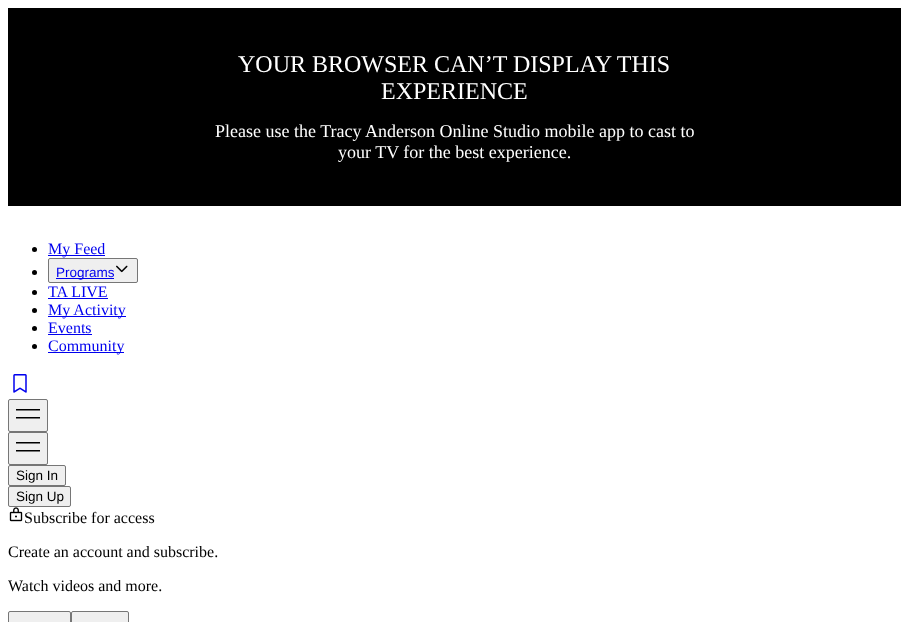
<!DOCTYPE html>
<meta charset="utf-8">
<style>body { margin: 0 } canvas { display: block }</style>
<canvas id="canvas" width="909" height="622"></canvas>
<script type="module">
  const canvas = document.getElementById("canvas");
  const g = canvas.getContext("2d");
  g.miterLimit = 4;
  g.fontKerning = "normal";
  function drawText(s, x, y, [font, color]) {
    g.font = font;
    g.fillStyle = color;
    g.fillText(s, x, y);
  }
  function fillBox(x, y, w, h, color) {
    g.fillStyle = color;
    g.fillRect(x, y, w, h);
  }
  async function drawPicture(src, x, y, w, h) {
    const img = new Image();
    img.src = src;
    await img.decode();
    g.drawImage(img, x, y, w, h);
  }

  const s1 = ["24px Liberation Serif", "#FFFFFF"];
  const s2 = ["18px Liberation Serif", "#FFFFFF"];
  const s3 = ["16px Liberation Serif", "#0000EE"];
  const s4 = ["13.5px Liberation Sans", "#0000EE"];
  const s5 = ["13.5px Liberation Sans", "#000000"];
  const s6 = ["16px Liberation Serif", "#000000"];

  fillBox(0, 0, 909, 622, "#FFFFFF");
  fillBox(8, 8, 893, 198, "#000000");
  drawText("YOUR BROWSER CAN’T DISPLAY THIS", 238, 72, s1);
  drawText("EXPERIENCE", 381, 99, s1);
  drawText("Please use the Tracy Anderson Online Studio mobile app to cast to", 215, 137, s2);
  drawText("your TV for the best experience.", 338, 158, s2);
  g.fillStyle = "#000000";
  g.beginPath();
  g.arc(34.5, 249.5, 2.5, 0, Math.PI * 2);
  g.fill();
  fillBox(48, 255, 57, 1, "#0000EE");
  drawText("My Feed", 48, 254, s3);
  g.fillStyle = "#000000";
  g.beginPath();
  g.arc(34.5, 272.5, 2.5, 0, Math.PI * 2);
  g.fill();
  g.fillStyle = "#EFEFEF";
  g.beginPath();
  g.roundRect(48.5, 258.5, 89, 24, 1.5);
  g.fill();
  g.strokeStyle = "#767676";
  g.stroke();
  fillBox(56, 278, 58, 1, "#0000EE");
  drawText("Programs", 56, 277, s4);
  await drawPicture("pic1.png", 116, 265, 12, 8);
  g.fillStyle = "#000000";
  g.beginPath();
  g.arc(34.5, 292.5, 2.5, 0, Math.PI * 2);
  g.fill();
  drawText("TA LIVE", 48, 297, s3);
  fillBox(48, 298, 60, 1, "#0000EE");
  g.fillStyle = "#000000";
  g.beginPath();
  g.arc(34.5, 310.5, 2.5, 0, Math.PI * 2);
  g.fill();
  fillBox(48, 316, 78, 1, "#0000EE");
  drawText("My Activity", 48, 315, s3);
  g.fillStyle = "#000000";
  g.beginPath();
  g.arc(34.5, 328.5, 2.5, 0, Math.PI * 2);
  g.fill();
  drawText("Events", 48, 333, s3);
  fillBox(48, 334, 44, 1, "#0000EE");
  g.fillStyle = "#000000";
  g.beginPath();
  g.arc(34.5, 346.5, 2.5, 0, Math.PI * 2);
  g.fill();
  fillBox(48, 352, 76, 1, "#0000EE");
  drawText("Community", 48, 351, s3);
  await drawPicture("pic2.png", 13, 374, 14, 19);
  g.fillStyle = "#EFEFEF";
  g.beginPath();
  g.roundRect(8.5, 399.5, 39, 32, 1.5);
  g.fill();
  g.stroke();
  g.beginPath();
  g.roundRect(8.5, 432.5, 39, 32, 1.5);
  g.fill();
  g.stroke();
  g.fillStyle = "#000000";
  g.beginPath();
  g.moveTo(16, 409);
  g.lineTo(40, 409);
  g.lineTo(40, 410.5);
  g.lineTo(16, 410.5);
  g.closePath();
  g.moveTo(16, 417);
  g.lineTo(40, 417);
  g.lineTo(40, 418.5);
  g.lineTo(16, 418.5);
  g.closePath();
  g.moveTo(16, 442);
  g.lineTo(40, 442);
  g.lineTo(40, 443.5);
  g.lineTo(16, 443.5);
  g.closePath();
  g.moveTo(16, 450);
  g.lineTo(40, 450);
  g.lineTo(40, 451.5);
  g.lineTo(16, 451.5);
  g.closePath();
  g.fill();
  g.fillStyle = "#EFEFEF";
  g.beginPath();
  g.roundRect(8.5, 465.5, 57, 20, 1.5);
  g.fill();
  g.stroke();
  drawText("Sign In", 16, 480, s5);
  g.fillStyle = "#EFEFEF";
  g.beginPath();
  g.roundRect(8.5, 486.5, 62, 20, 1.5);
  g.fill();
  g.stroke();
  drawText("Sign Up", 16, 501, s5);
  await drawPicture("pic3.png", 9, 507, 14, 15);
  drawText("Subscribe for access", 24, 523, s6);
  drawText("Create an account and subscribe.", 8, 557, s6);
  drawText("Watch videos and more.", 8, 591, s6);
  g.fillStyle = "#EFEFEF";
  g.beginPath();
  g.roundRect(8.5, 611.5, 62, 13, 1.5);
  g.fill();
  g.stroke();
  g.beginPath();
  g.roundRect(71.5, 611.5, 57, 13, 1.5);
  g.fill();
  g.stroke();
</script>
